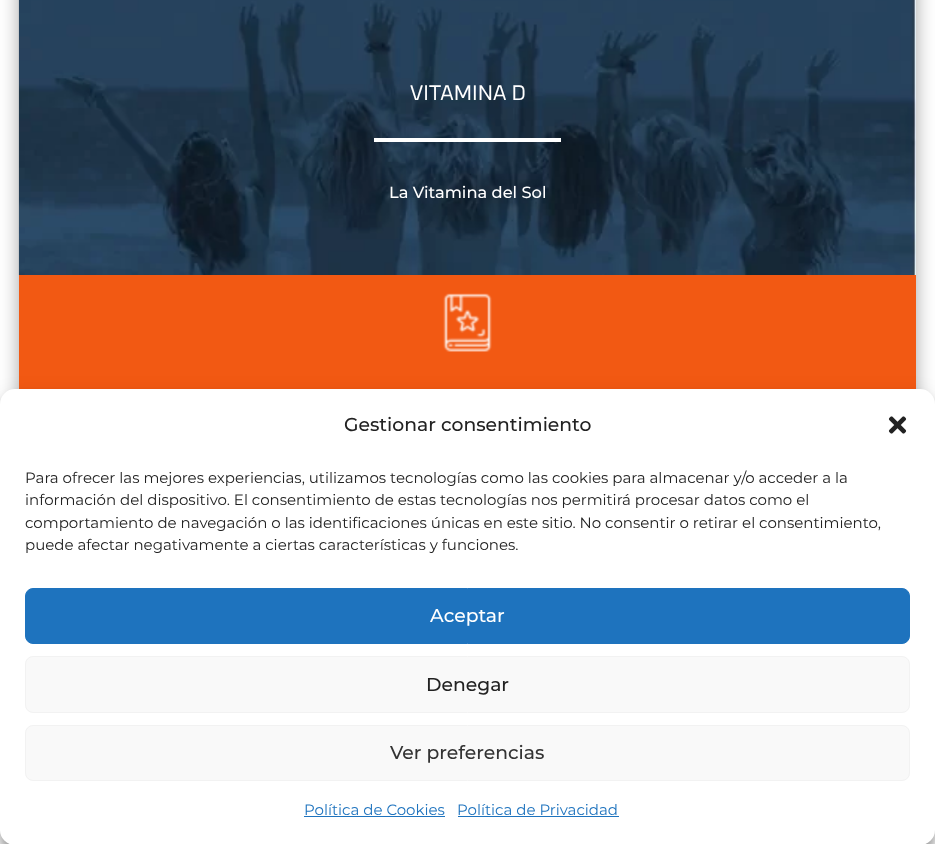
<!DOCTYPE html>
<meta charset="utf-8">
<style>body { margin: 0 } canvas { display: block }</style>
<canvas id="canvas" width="935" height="844"></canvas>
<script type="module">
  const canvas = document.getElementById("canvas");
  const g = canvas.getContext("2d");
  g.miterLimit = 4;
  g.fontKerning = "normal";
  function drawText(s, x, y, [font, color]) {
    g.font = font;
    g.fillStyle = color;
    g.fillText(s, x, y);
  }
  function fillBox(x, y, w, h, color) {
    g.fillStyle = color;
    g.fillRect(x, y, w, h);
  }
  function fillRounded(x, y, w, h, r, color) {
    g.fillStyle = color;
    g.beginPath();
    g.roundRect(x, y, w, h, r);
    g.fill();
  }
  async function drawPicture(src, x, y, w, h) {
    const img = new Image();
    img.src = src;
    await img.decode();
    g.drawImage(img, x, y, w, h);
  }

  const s1 = ["200 21.25px Oxanium", "#FFFFFF"];
  const s2 = ["500 16.25px Montserrat", "#FFFFFF"];
  const s3 = ["500 18.75px Montserrat", "#222222"];
  const s4 = ["15px Montserrat", "#222222"];
  const s5 = ["500 18.75px Montserrat", "#FFFFFF"];
  const s6 = ["500 18.75px Montserrat", "#333333"];
  const s7 = ["15px Montserrat", "#1E73BE"];

  fillBox(0, 0, 935, 844, "#FFFFFF");
  g.fillStyle = "rgba(0, 0, 0, 0.35)";
  g.filter = "blur(9.5px)";
  g.beginPath();
  g.rect(19, -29, 897, 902);
  g.fill();
  g.filter = "none";
  await drawPicture("pic1.png", 18, 0, 898, 275);
  drawText("VITAMINA D", 410, 100, s1);
  fillBox(374, 138, 187, 4, "#FFFFFF");
  drawText("La Vitamina del Sol", 389, 198, s2);
  fillBox(19, 275, 897, 114, "#F25913");
  await drawPicture("pic2.png", 443, 293, 49, 59);
  g.fillStyle = "rgba(0, 0, 0, 0.23)";
  g.filter = "blur(4px)";
  g.beginPath();
  g.roundRect(0, 396, 935, 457, 15);
  g.fill();
  g.filter = "none";
  g.fillStyle = "rgba(0, 0, 0, 0.19)";
  g.filter = "blur(12.5px)";
  g.beginPath();
  g.roundRect(0, 401, 935, 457, 15);
  g.fill();
  g.filter = "none";
  fillRounded(0, 389, 935, 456, 15, "#FFFFFF");
  drawText("Gestionar consentimiento", 344, 431, s3);
  await drawPicture("pic3.png", 888, 416, 19, 18);
  drawText("Para ofrecer las mejores experiencias, utilizamos tecnologías como las cookies para almacenar y/o acceder a la", 25, 483, s4);
  drawText("información del dispositivo. El consentimiento de estas tecnologías nos permitirá procesar datos como el", 25, 505, s4);
  drawText("comportamiento de navegación o las identificaciones únicas en este sitio. No consentir o retirar el consentimiento,", 25, 528, s4);
  drawText("puede afectar negativamente a ciertas características y funciones.", 25, 550, s4);
  g.fillStyle = "#1E73BE";
  g.beginPath();
  g.roundRect(25.5, 588.5, 884, 55, 7.5);
  g.fill();
  g.strokeStyle = "#1E73BE";
  g.stroke();
  drawText("Aceptar", 430, 622, s5);
  g.fillStyle = "#F9F9F9";
  g.beginPath();
  g.roundRect(25.5, 656.5, 884, 56, 7.5);
  g.fill();
  g.strokeStyle = "#F2F2F2";
  g.stroke();
  drawText("Denegar", 426, 691, s3);
  g.fillStyle = "#F9F9F9";
  g.beginPath();
  g.roundRect(25.5, 725.5, 884, 55, 7.5);
  g.fill();
  g.stroke();
  drawText("Ver preferencias", 390, 759, s6);
  drawText("Política de Cookies", 304, 815, s7);
  fillBox(304, 816, 141, 1, "#1E73BE");
  drawText("Política de Privacidad", 457, 815, s7);
  fillBox(458, 816, 161, 1, "#1E73BE");
</script>
